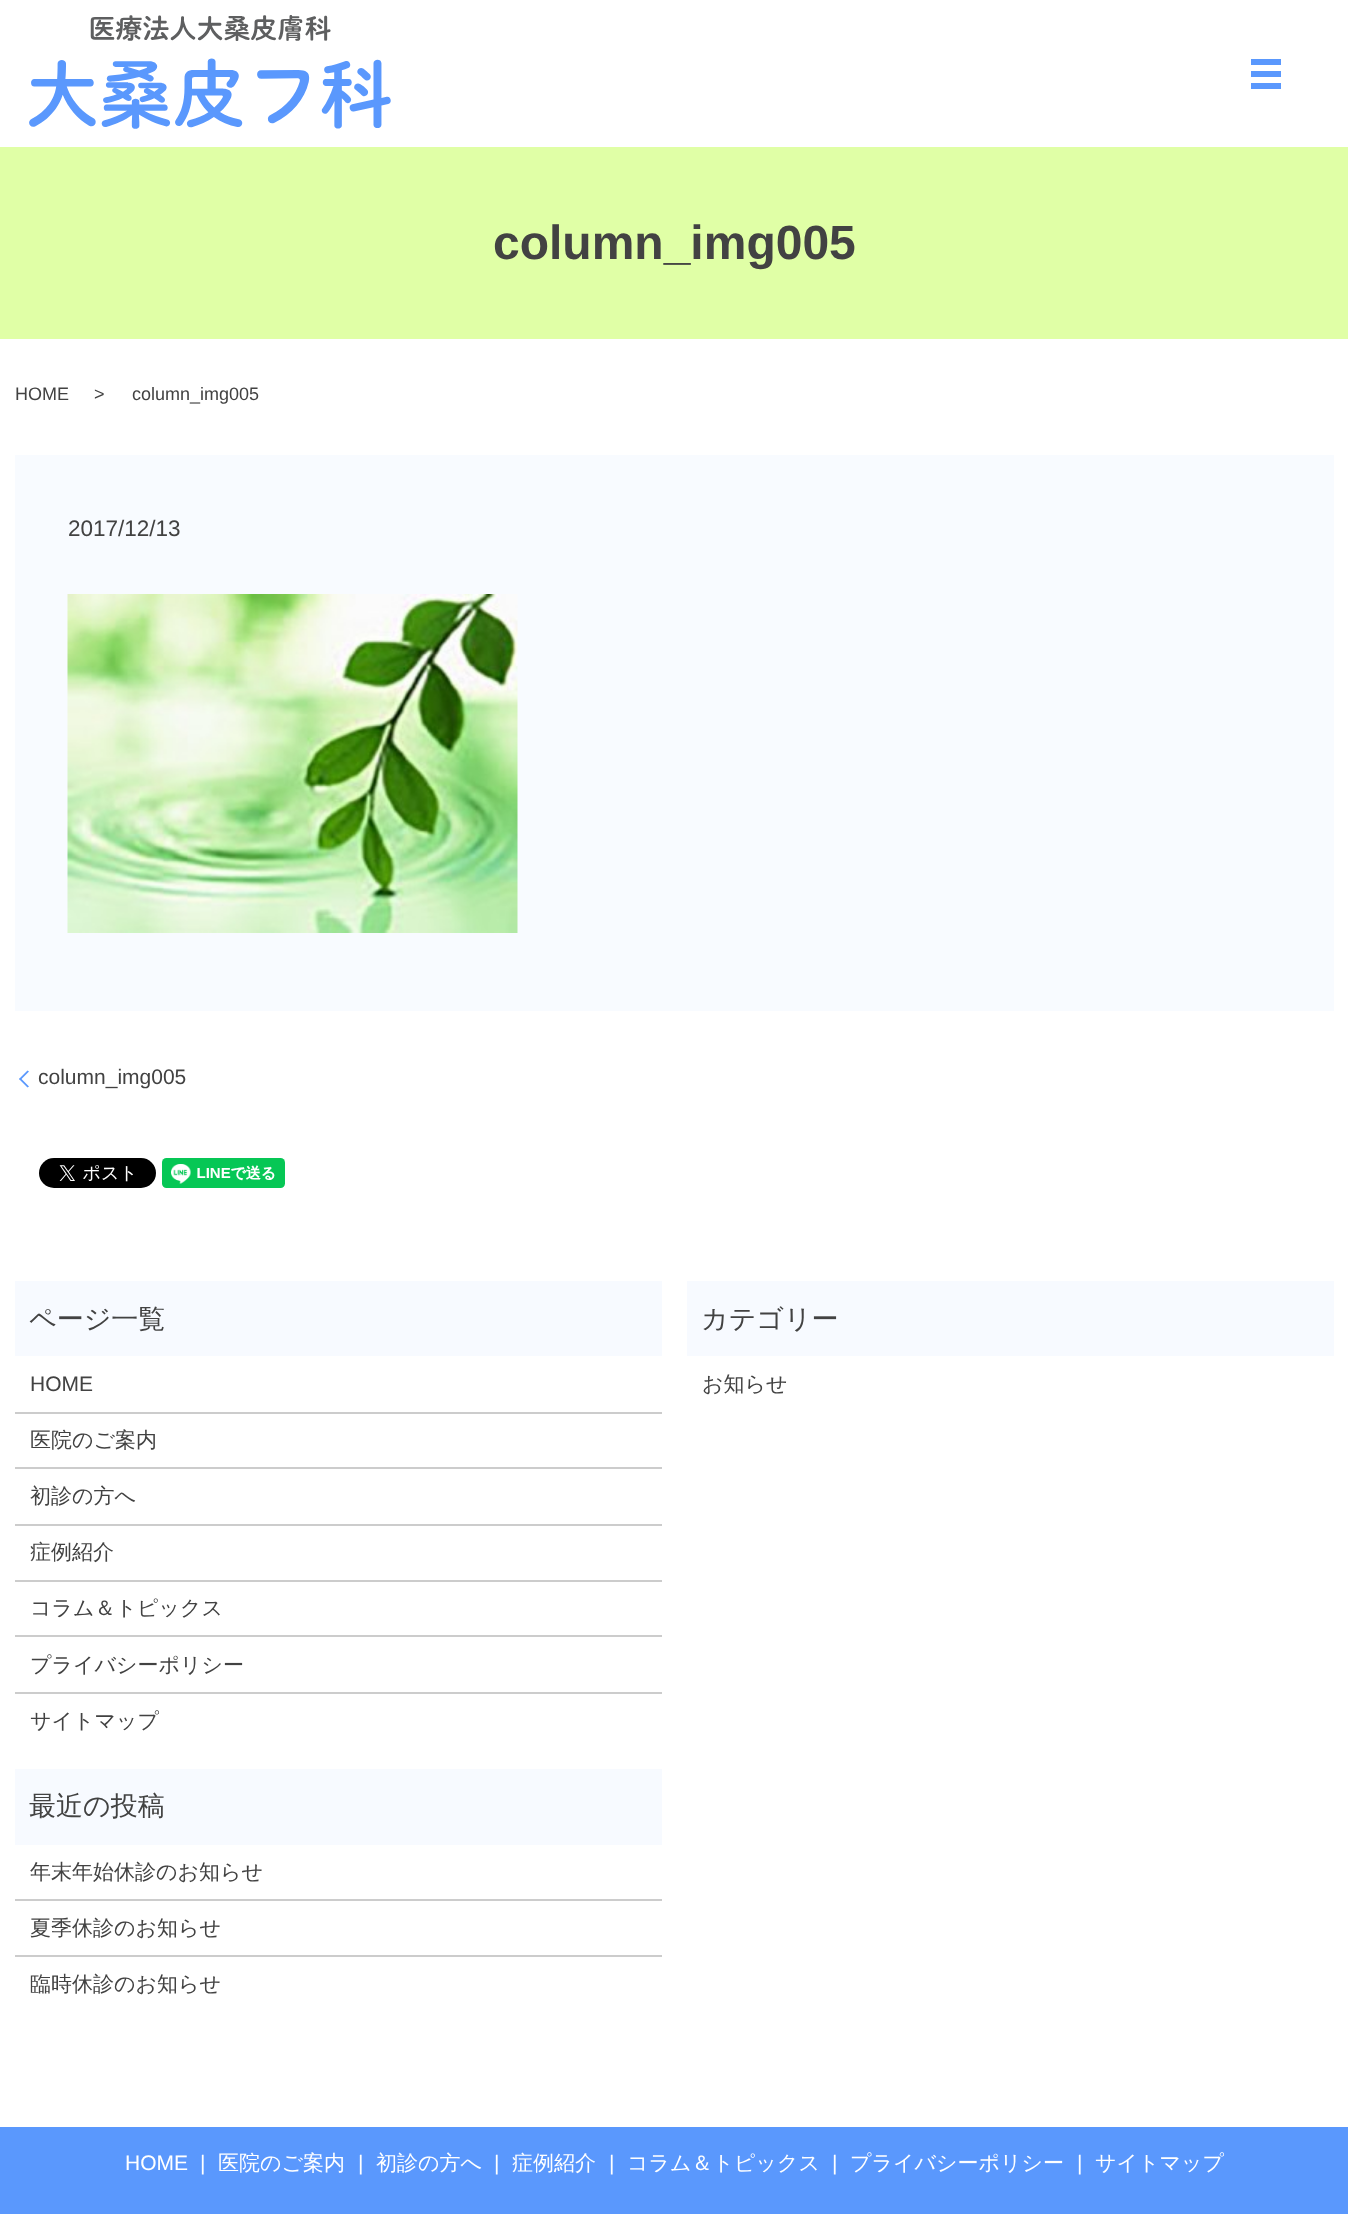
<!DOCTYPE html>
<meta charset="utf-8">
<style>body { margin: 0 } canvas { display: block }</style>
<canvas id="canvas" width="1348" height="2214"></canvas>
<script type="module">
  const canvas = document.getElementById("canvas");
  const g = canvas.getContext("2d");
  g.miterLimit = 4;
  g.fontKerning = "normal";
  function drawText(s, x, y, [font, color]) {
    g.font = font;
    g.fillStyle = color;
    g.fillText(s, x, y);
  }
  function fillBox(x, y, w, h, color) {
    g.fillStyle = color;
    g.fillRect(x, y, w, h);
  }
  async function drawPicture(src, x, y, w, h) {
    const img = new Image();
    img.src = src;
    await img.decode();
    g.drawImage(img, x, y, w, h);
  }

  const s1 = ["bold 48px Liberation Sans", "#424242"];
  const s2 = ["18px Liberation Sans", "#424242"];
  const s3 = ["22.5px Liberation Sans", "#424242"];
  const s4 = ["21px Liberation Sans", "#424242"];
  const s5 = ["500 27px WenQuanYi Zen Hei", "#424242"];
  const s6 = ["500 21px WenQuanYi Zen Hei", "#424242"];
  const s7 = ["21px Liberation Sans", "#FFFFFF"];
  const s8 = ["500 21px WenQuanYi Zen Hei", "#FFFFFF"];

  fillBox(0, 0, 1348, 2214, "#FFFFFF");
  await drawPicture("pic1.png", 29, 15, 362, 114);
  fillBox(1251, 59, 30, 6, "#5A98FD");
  fillBox(1251, 71, 30, 6, "#5A98FD");
  fillBox(1251, 83, 30, 6, "#5A98FD");
  fillBox(0, 147, 1348, 192, "#E0FFA6");
  drawText("column_img005", 493, 259, s1);
  drawText("HOME", 15, 400, s2);
  drawText(">", 94, 400, s2);
  drawText("column_img005", 132, 400, s2);
  fillBox(15, 455, 1319, 556, "#F8FBFF");
  drawText("2017/12/13", 68, 536, s3);
  await drawPicture("pic2.png", 67, 594, 451, 339);
  g.fillStyle = "#5A98FD";
  g.beginPath();
  g.moveTo(19, 1079);
  g.lineTo(27.5, 1070.5);
  g.lineTo(29, 1071.5);
  g.lineTo(20.5, 1080);
  g.closePath();
  g.fill();
  drawText("column_img005", 38, 1084, s4);
  g.fillStyle = "#5A98FD";
  g.beginPath();
  g.moveTo(27.5, 1087.5);
  g.lineTo(19, 1079);
  g.lineTo(20.5, 1078);
  g.lineTo(29, 1086.5);
  g.closePath();
  g.fill();
  await drawPicture("pic3.png", 39, 1158, 117, 30);
  await drawPicture("pic4.png", 162, 1158, 123, 30);
  fillBox(15, 1281, 647, 75, "#F7FAFF");
  drawText("ページ一覧", 29, 1328, s5);
  fillBox(15, 1412, 647, 2, "#CCCCCC");
  drawText("HOME", 30, 1391, s4);
  fillBox(15, 1467, 647, 2, "#CCCCCC");
  drawText("医院のご案内", 30, 1447, s6);
  fillBox(15, 1524, 647, 2, "#CCCCCC");
  drawText("初診の方へ", 30, 1503, s6);
  fillBox(15, 1580, 647, 2, "#CCCCCC");
  drawText("症例紹介", 30, 1559, s6);
  fillBox(15, 1635, 647, 2, "#CCCCCC");
  drawText("コラム＆トピックス", 30, 1615, s6);
  fillBox(15, 1692, 647, 2, "#CCCCCC");
  drawText("プライバシーポリシー", 30, 1672, s6);
  drawText("サイトマップ", 30, 1728, s6);
  fillBox(687, 1281, 647, 75, "#F7FAFF");
  drawText("カテゴリー", 701, 1328, s5);
  drawText("お知らせ", 702, 1391, s6);
  fillBox(15, 1769, 647, 76, "#F7FAFF");
  drawText("最近の投稿", 29, 1815, s5);
  fillBox(15, 1899, 647, 2, "#CCCCCC");
  drawText("年末年始休診のお知らせ", 30, 1879, s6);
  fillBox(15, 1955, 647, 2, "#CCCCCC");
  drawText("夏季休診のお知らせ", 30, 1935, s6);
  drawText("臨時休診のお知らせ", 30, 1991, s6);
  fillBox(0, 2127, 1348, 87, "#5A98FD");
  drawText("HOME", 125, 2170, s7);
  drawText("|", 200, 2170, s7);
  drawText("医院のご案内", 218, 2170, s8);
  drawText("|", 358, 2170, s7);
  drawText("初診の方へ", 376, 2170, s8);
  drawText("|", 494, 2170, s7);
  drawText("症例紹介", 512, 2170, s8);
  drawText("|", 609, 2170, s7);
  drawText("コラム＆トピックス", 627, 2170, s8);
  drawText("|", 832, 2170, s7);
  drawText("プライバシーポリシー", 850, 2170, s8);
  drawText("|", 1077, 2170, s7);
  drawText("サイトマップ", 1095, 2170, s8);
</script>
